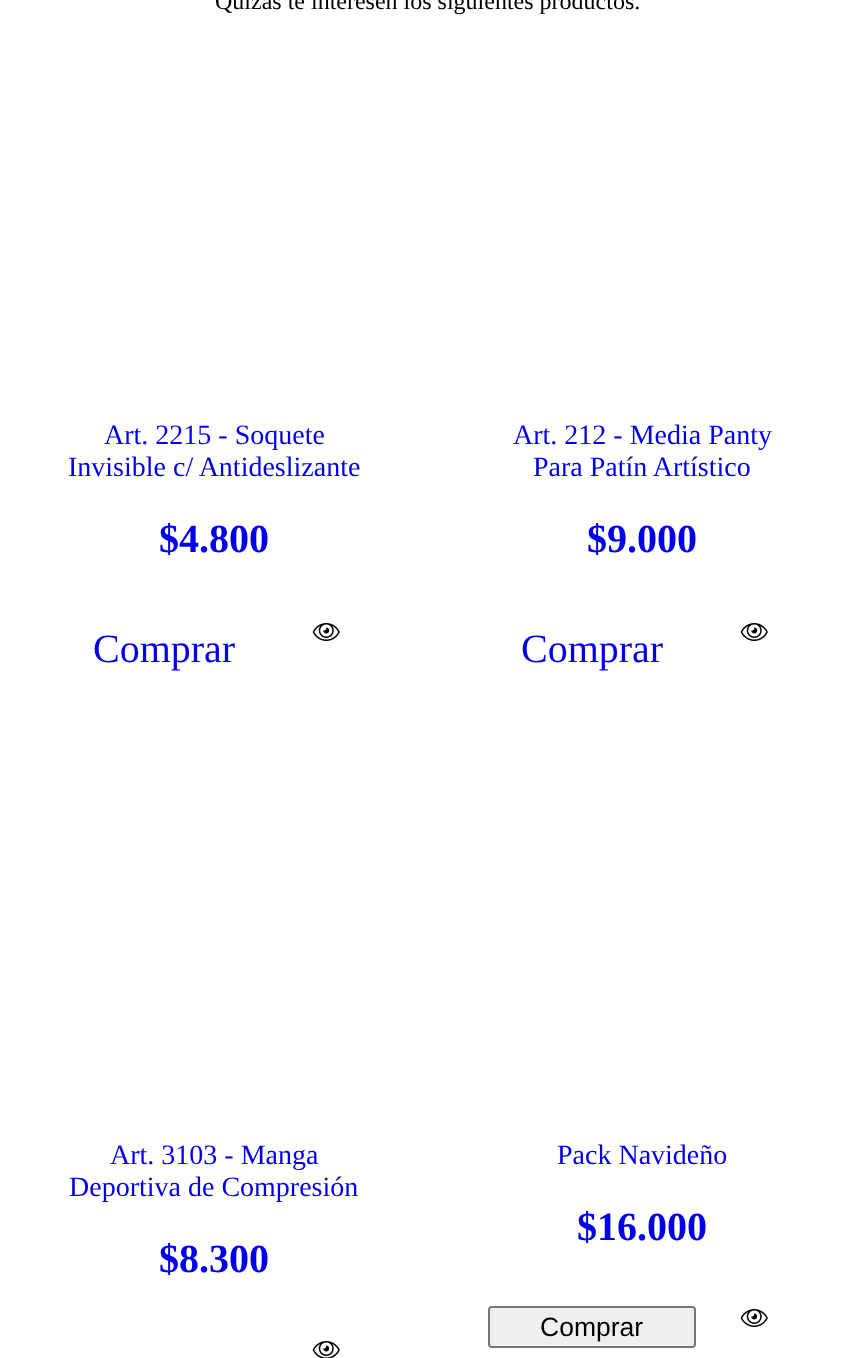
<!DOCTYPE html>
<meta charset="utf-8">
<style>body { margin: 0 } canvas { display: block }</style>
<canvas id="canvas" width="855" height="1358"></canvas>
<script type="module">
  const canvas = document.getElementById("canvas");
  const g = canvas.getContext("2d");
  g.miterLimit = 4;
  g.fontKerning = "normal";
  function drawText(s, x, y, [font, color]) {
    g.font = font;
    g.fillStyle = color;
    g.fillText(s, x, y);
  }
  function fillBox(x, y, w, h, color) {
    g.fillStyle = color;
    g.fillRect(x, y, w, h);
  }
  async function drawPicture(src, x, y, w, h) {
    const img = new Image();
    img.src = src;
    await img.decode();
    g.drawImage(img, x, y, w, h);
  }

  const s1 = ["24px Liberation Serif", "#000000"];
  const s2 = ["28px Liberation Serif", "#0000EE"];
  const s3 = ["bold 40px Liberation Serif", "#0000EE"];
  const s4 = ["40px Liberation Serif", "#0000EE"];
  const s5 = ["26.5px Liberation Sans", "#000000"];

  fillBox(0, 0, 855, 1358, "#FFFFFF");
  drawText("Quizás te interesen los siguientes productos.", 215, 9, s1);
  drawText("Art. 2215 - Soquete", 104, 444, s2);
  drawText("Invisible c/ Antideslizante", 68, 476, s2);
  drawText("$4.800", 159, 552, s3);
  await drawPicture("pic1.png", 312, 623, 28, 18);
  drawText("Comprar", 93, 662, s4);
  drawText("Art. 212 - Media Panty", 513, 444, s2);
  drawText("Para Patín Artístico", 533, 476, s2);
  drawText("$9.000", 587, 552, s3);
  await drawPicture("pic1.png", 740, 623, 28, 18);
  drawText("Comprar", 521, 662, s4);
  drawText("Art. 3103 - Manga", 110, 1164, s2);
  drawText("Deportiva de Compresión", 69, 1196, s2);
  drawText("$8.300", 159, 1272, s3);
  await drawPicture("pic2.png", 312, 1341, 28, 17);
  drawText("Pack Navideño", 557, 1164, s2);
  drawText("$16.000", 577, 1240, s3);
  g.fillStyle = "#EFEFEF";
  g.beginPath();
  g.roundRect(489, 1307, 206, 40, 3);
  g.fill();
  g.strokeStyle = "#767676";
  g.lineWidth = 2;
  g.stroke();
  drawText("Comprar", 540, 1336, s5);
  await drawPicture("pic1.png", 740, 1309, 28, 18);
</script>
